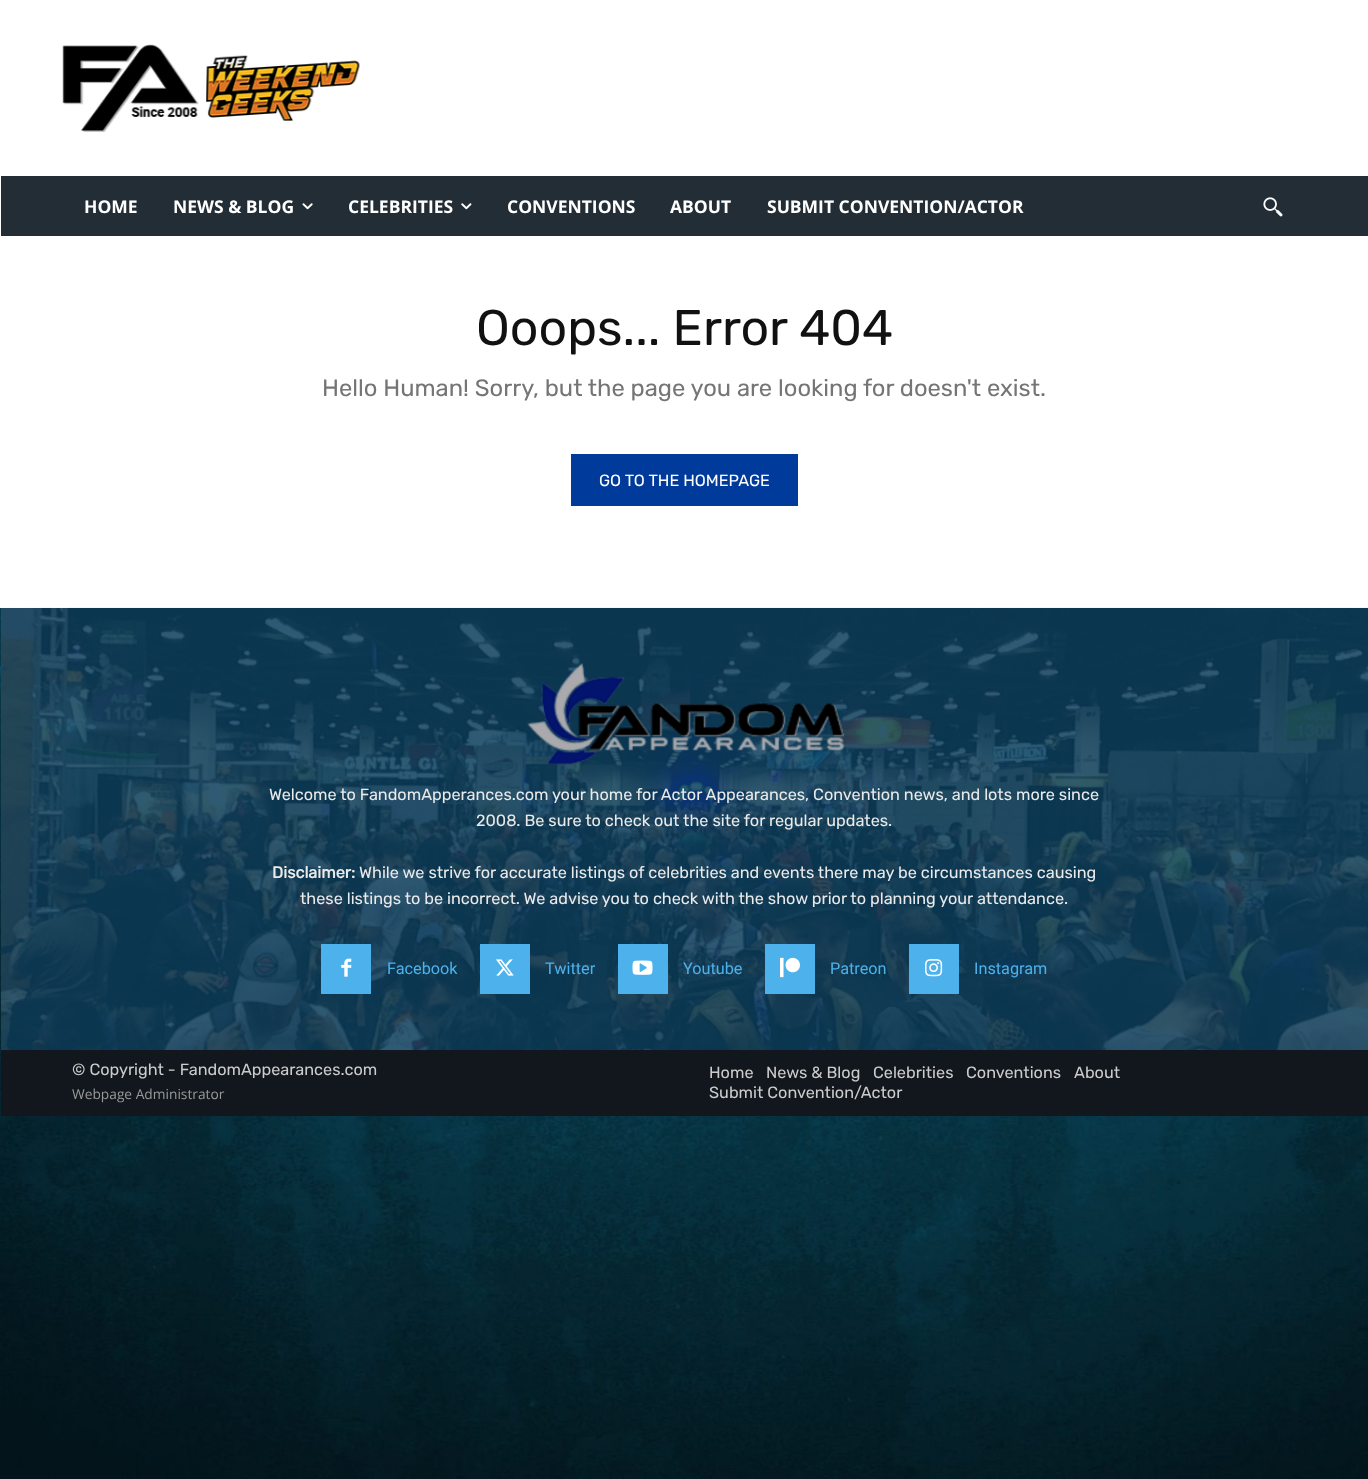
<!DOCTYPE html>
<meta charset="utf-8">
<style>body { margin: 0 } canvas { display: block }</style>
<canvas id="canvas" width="1368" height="1479"></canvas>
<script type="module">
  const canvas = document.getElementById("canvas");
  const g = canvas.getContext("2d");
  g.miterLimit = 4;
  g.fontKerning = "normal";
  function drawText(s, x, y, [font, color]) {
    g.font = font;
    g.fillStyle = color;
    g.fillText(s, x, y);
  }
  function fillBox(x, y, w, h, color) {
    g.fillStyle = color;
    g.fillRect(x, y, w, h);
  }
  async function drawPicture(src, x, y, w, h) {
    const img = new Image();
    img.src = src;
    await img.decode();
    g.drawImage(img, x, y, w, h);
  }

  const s1 = ["bold 17.5px Open Sans", "#FFFFFF"];
  const s2 = ["300 50px Rubik", "#111111"];
  const s3 = ["300 23.75px Rubik", "#757575"];
  const s4 = ["300 16.25px Rubik", "#FFFFFF"];
  const s5 = ["300 16.25px Rubik", "#EAEAEA"];
  const s6 = ["bold 16.25px Rubik", "#EAEAEA"];
  const s7 = ["16.25px Roboto", "#4DB2EC"];
  const s8 = ["300 16.25px Rubik", "#CCCCCC"];
  const s9 = ["13.75px Open Sans", "#999999"];

  fillBox(0, 0, 1368, 1479, "#FFFFFF");
  await drawPicture("pic1.png", 62, 44, 298, 88);
  fillBox(1, 176, 1367, 60, "#232D35");
  drawText("HOME", 84, 213, s1);
  drawText("NEWS & BLOG", 173, 213, s1);
  await drawPicture("pic2.png", 302, 203, 11, 7);
  drawText("CELEBRITIES", 348, 213, s1);
  await drawPicture("pic3.png", 461, 203, 11, 7);
  drawText("CONVENTIONS", 507, 213, s1);
  drawText("ABOUT", 670, 213, s1);
  drawText("SUBMIT CONVENTION/ACTOR", 767, 213, s1);
  await drawPicture("pic4.png", 1263, 197, 20, 20);
  drawText("Ooops... Error 404", 476, 345, s2);
  drawText("Hello Human! Sorry, but the page you are looking for doesn't exist.", 322, 396, s3);
  fillBox(571, 454, 227, 52, "#003B9B");
  drawText("GO TO THE HOMEPAGE", 599, 486, s4);
  await drawPicture("pic12.png", 0, 608, 1368, 871);
  fillBox(1, 608, 1367, 442, "#0B3E5B");
  await drawPicture("pic5.png", 1, 607, 1367, 443);
  await drawPicture("pic6.png", 527, 663, 318, 102);
  drawText("Welcome to FandomApperances.com your home for Actor Appearances, Convention news, and lots more since", 269, 800, s5);
  drawText("2008. Be sure to check out the site for regular updates.", 476, 826, s5);
  drawText("Disclaimer:", 272, 878, s6);
  drawText("While we strive for accurate listings of celebrities and events there may be circumstances causing", 359, 878, s5);
  drawText("these listings to be incorrect. We advise you to check with the show prior to planning your attendance.", 300, 904, s5);
  fillBox(321, 944, 50, 50, "#4DB2EC");
  await drawPicture("pic7.png", 341, 958, 11, 19);
  drawText("Facebook", 387, 974, s7);
  fillBox(480, 944, 50, 50, "#4DB2EC");
  await drawPicture("pic8.png", 496, 959, 18, 17);
  drawText("Twitter", 545, 974, s7);
  fillBox(618, 944, 50, 50, "#4DB2EC");
  await drawPicture("pic9.png", 632, 960, 21, 15);
  drawText("Youtube", 683, 974, s7);
  fillBox(765, 944, 50, 50, "#4DB2EC");
  await drawPicture("pic10.png", 780, 957, 20, 21);
  drawText("Patreon", 830, 974, s7);
  fillBox(909, 944, 50, 50, "#4DB2EC");
  await drawPicture("pic11.png", 925, 959, 18, 18);
  drawText("Instagram", 974, 974, s7);
  fillBox(1, 1050, 1367, 66, "#11171C");
  drawText("© Copyright - FandomAppearances.com", 72, 1075, s8);
  drawText("Webpage Administrator", 72, 1099, s9);
  drawText("Home", 709, 1078, s8);
  drawText("News & Blog", 766, 1078, s8);
  drawText("Celebrities", 873, 1078, s8);
  drawText("Conventions", 966, 1078, s8);
  drawText("About", 1074, 1078, s8);
  drawText("Submit Convention/Actor", 709, 1098, s8);
</script>
